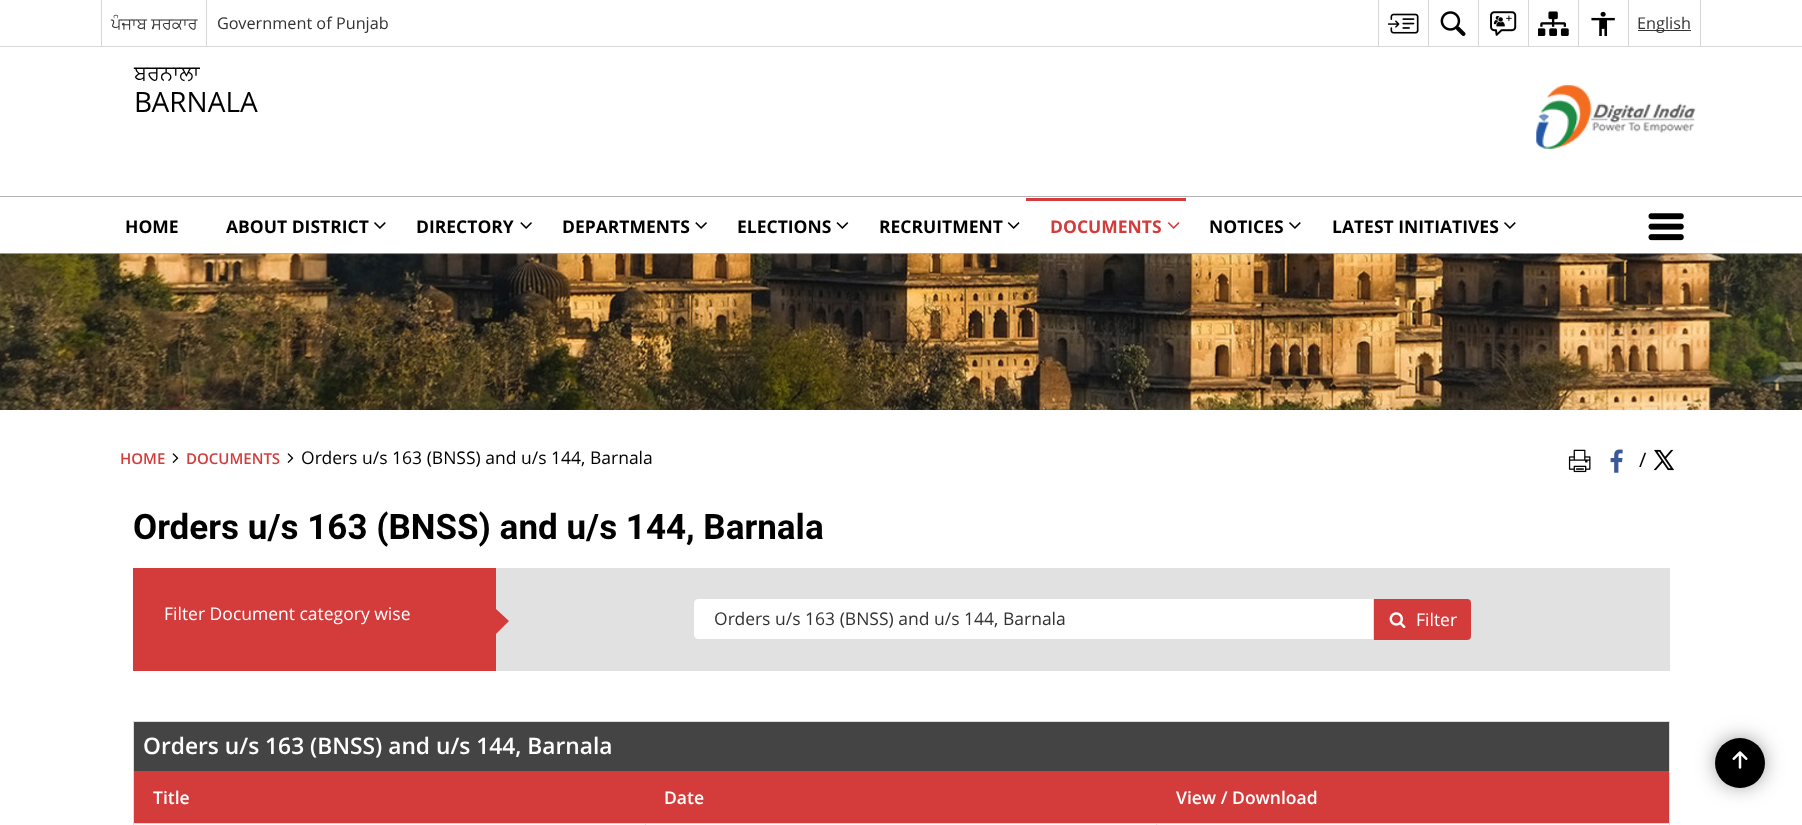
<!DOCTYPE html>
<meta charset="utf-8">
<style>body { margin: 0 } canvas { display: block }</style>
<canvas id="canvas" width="1802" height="825"></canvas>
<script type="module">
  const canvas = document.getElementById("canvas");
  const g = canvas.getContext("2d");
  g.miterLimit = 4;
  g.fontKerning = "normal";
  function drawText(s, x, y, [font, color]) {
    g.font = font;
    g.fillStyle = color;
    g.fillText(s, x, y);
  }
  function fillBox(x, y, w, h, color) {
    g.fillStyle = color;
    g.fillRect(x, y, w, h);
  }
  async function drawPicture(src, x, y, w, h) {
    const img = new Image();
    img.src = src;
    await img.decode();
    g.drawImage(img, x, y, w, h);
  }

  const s1 = ["16.25px FreeSans", "#333333"];
  const s2 = ["16.25px Open Sans", "#333333"];
  const s3 = ["21px FreeSans", "#000000"];
  const s4 = ["28px Open Sans", "#000000"];
  const s5 = ["bold 17.5px Open Sans", "#000000"];
  const s6 = ["bold 17.5px Open Sans", "#D43C3C"];
  const s7 = ["600 15px Open Sans", "#D43C3C"];
  const s8 = ["17.5px Open Sans", "#000000"];
  const s9 = ["20px Open Sans", "#000000"];
  const s10 = ["bold 35px Roboto", "#000000"];
  const s11 = ["17.5px Open Sans", "#FFFFFF"];
  const s12 = ["17.5px Open Sans", "#333333"];
  const s13 = ["600 22.75px Open Sans", "#FFFFFF"];
  const s14 = ["600 17.5px Open Sans", "#FFFFFF"];

  fillBox(0, 0, 1802, 825, "#FFFFFF");
  fillBox(0, 46, 1802, 1, "#D8D8D8");
  fillBox(101, 0, 1, 46, "#D8D8D8");
  drawText("ਪੰਜਾਬ ਸਰਕਾਰ", 111, 29, s1);
  fillBox(206, 0, 1, 46, "#D8D8D8");
  drawText("Government of Punjab", 217, 29, s2);
  fillBox(1378, 0, 1, 46, "#D8D8D8");
  await drawPicture("pic1.png", 1388, 13, 31, 21);
  fillBox(1428, 0, 1, 46, "#D8D8D8");
  await drawPicture("pic2.png", 1440, 11, 26, 25);
  fillBox(1478, 0, 1, 46, "#D8D8D8");
  await drawPicture("pic3.png", 1490, 11, 27, 25);
  fillBox(1528, 0, 1, 46, "#D8D8D8");
  await drawPicture("pic4.png", 1538, 11, 31, 25);
  fillBox(1578, 0, 1, 46, "#D8D8D8");
  await drawPicture("pic5.png", 1591, 11, 24, 25);
  fillBox(1700, 0, 1, 46, "#D8D8D8");
  fillBox(1628, 0, 1, 46, "#D8D8D8");
  fillBox(1638, 30, 53, 1, "#333333");
  drawText("English", 1637, 29, s2);
  drawText("ਬਰਨਾਲਾ", 134, 80, s3);
  drawText("BARNALA", 134, 112, s4);
  await drawPicture("pic6.png", 1536, 84, 160, 65);
  fillBox(0, 196, 1802, 1, "#B3B3B3");
  fillBox(0, 253, 1802, 1, "#B3B3B3");
  drawText("HOME", 125, 233, s5);
  drawText("ABOUT DISTRICT", 226, 233, s5);
  await drawPicture("pic7.png", 374, 222, 12, 7);
  drawText("DIRECTORY", 416, 233, s5);
  await drawPicture("pic8.png", 520, 222, 12, 7);
  drawText("DEPARTMENTS", 562, 233, s5);
  await drawPicture("pic8.png", 695, 222, 12, 7);
  drawText("ELECTIONS", 737, 233, s5);
  await drawPicture("pic9.png", 836, 222, 13, 7);
  drawText("RECRUITMENT", 879, 233, s5);
  await drawPicture("pic10.png", 1007, 222, 13, 7);
  fillBox(1026, 198, 160, 3, "#D43C3C");
  drawText("DOCUMENTS", 1050, 233, s6);
  await drawPicture("pic11.png", 1167, 222, 13, 7);
  drawText("NOTICES", 1209, 233, s5);
  await drawPicture("pic7.png", 1289, 222, 12, 7);
  drawText("LATEST INITIATIVES", 1332, 233, s5);
  await drawPicture("pic7.png", 1504, 222, 12, 7);
  await drawPicture("pic12.png", 1648, 213, 36, 28);
  await drawPicture("pic13.png", 0, 253, 1802, 157);
  drawText("HOME", 120, 464, s7);
  await drawPicture("pic14.png", 172, 453, 7, 10);
  drawText("DOCUMENTS", 186, 464, s7);
  await drawPicture("pic14.png", 287, 453, 7, 10);
  drawText("Orders u/s 163 (BNSS) and u/s 144, Barnala", 301, 464, s8);
  await drawPicture("pic15.png", 1568, 449, 23, 24);
  await drawPicture("pic16.png", 1610, 449, 13, 24);
  drawText("/", 1639, 467, s9);
  await drawPicture("pic17.png", 1653, 449, 21, 22);
  drawText("Orders u/s 163 (BNSS) and u/s 144, Barnala", 133, 539, s10);
  fillBox(496, 568, 1174, 103, "#E1E1E1");
  fillBox(133, 568, 363, 103, "#D43C3C");
  drawText("Filter Document category wise", 164, 620, s11);
  g.fillStyle = "#D43C3C";
  g.beginPath();
  g.moveTo(496, 634);
  g.lineTo(496, 609);
  g.lineTo(509, 621);
  g.closePath();
  g.fill();
  g.fillStyle = "#FFFFFF";
  g.beginPath();
  g.roundRect(694.5, 599.5, 678, 39, [3.5, 0, 0, 3.5]);
  g.fill();
  g.strokeStyle = "#FFFFFF";
  g.stroke();
  drawText("Orders u/s 163 (BNSS) and u/s 144, Barnala", 714, 625, s12);
  g.fillStyle = "#D43C3C";
  g.beginPath();
  g.roundRect(1374, 599, 97, 41, [0, 4, 4, 0]);
  g.fill();
  await drawPicture("pic18.png", 1389, 612, 17, 17);
  drawText("Filter", 1416, 626, s11);
  fillBox(133, 721, 1537, 1, "#DDDDDD");
  fillBox(1669, 721, 1, 104, "#DDDDDD");
  fillBox(133, 721, 1, 104, "#DDDDDD");
  fillBox(134, 722, 1535, 49, "#444444");
  drawText("Orders u/s 163 (BNSS) and u/s 144, Barnala", 143, 754, s13);
  fillBox(134, 771, 1535, 52, "#D43C3C");
  drawText("Title", 153, 804, s14);
  drawText("Date", 664, 804, s14);
  drawText("View / Download", 1176, 804, s14);
  fillBox(133, 823, 1537, 1, "#DDDDDD");
  fillBox(645, 823, 1, 2, "#DDDDDD");
  fillBox(1156, 823, 1, 2, "#DDDDDD");
  g.fillStyle = "#3C3C3C";
  g.filter = "blur(12px)";
  g.beginPath();
  g.roundRect(1721, 744, 38, 37, 18.5);
  g.fill();
  g.filter = "none";
  g.fillStyle = "#000000";
  g.beginPath();
  g.arc(1740, 763, 25, 0, Math.PI * 2);
  g.fill();
  await drawPicture("pic19.png", 1732, 751, 16, 18);
</script>
